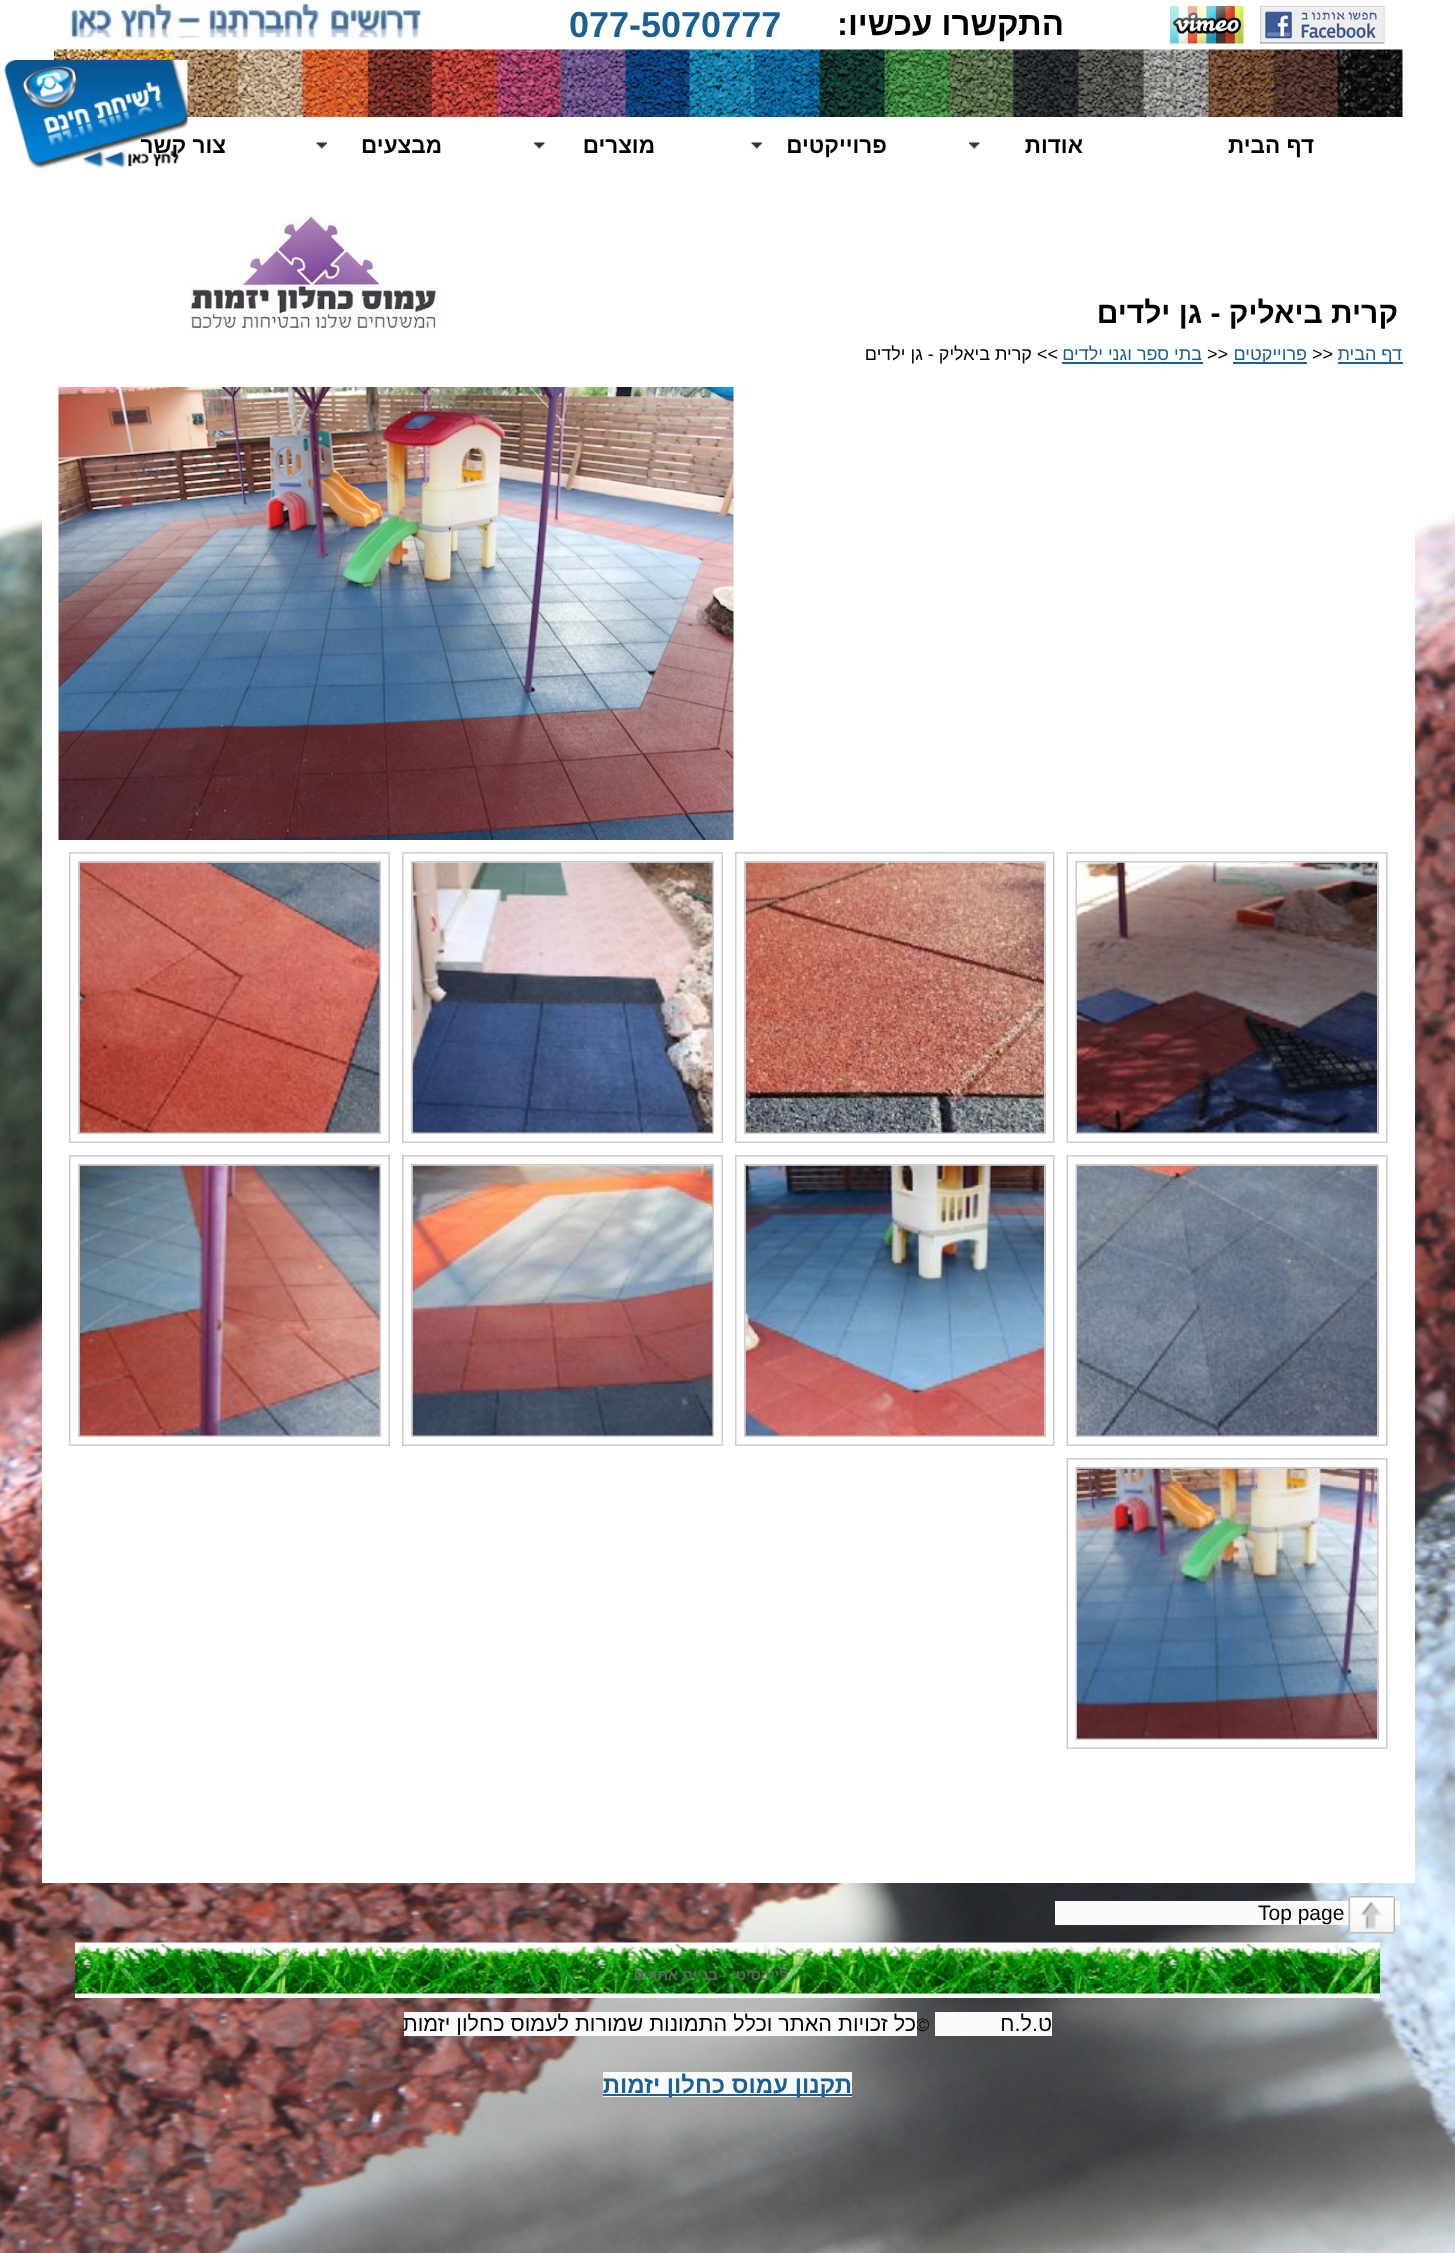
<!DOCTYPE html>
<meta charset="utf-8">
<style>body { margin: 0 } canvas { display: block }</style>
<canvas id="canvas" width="1455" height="2253"></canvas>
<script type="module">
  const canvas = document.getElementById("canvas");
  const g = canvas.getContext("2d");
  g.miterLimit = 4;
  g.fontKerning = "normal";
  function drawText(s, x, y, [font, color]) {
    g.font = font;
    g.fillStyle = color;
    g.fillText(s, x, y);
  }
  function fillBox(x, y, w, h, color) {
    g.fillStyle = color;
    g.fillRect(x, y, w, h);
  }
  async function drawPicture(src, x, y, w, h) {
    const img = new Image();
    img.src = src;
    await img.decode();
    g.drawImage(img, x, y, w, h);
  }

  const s1 = ["bold 33px Liberation Sans", "#000000"];
  const s2 = ["bold 36px Liberation Sans", "#186096"];
  const s3 = ["bold 22.5px Liberation Sans", "#000000"];
  const s4 = ["bold 30px Liberation Sans", "#000000"];
  const s5 = ["18px Liberation Sans", "#186096"];
  const s6 = ["18px Liberation Sans", "#000000"];
  const s7 = ["21px Liberation Sans", "#000000"];
  const s8 = ["21.6px Liberation Sans", "#000000"];
  const s9 = ["bold 24px Liberation Sans", "#186096"];
  const s10 = ["bold 15px Liberation Sans", "#616262"];

  fillBox(0, 0, 1455, 2253, "#FFFFFF");
  await drawPicture("pic1.png", 0, 514, 1455, 1739);
  await drawPicture("pic2.png", 1260, 6, 125, 38);
  await drawPicture("pic3.png", 1170, 6, 74, 38);
  g.direction = "rtl";
  drawText("התקשרו עכשיו:", 1064, 35, s1);
  g.direction = "ltr";
  drawText("077-5070777", 569, 37, s2);
  await drawPicture("pic4.png", 70, 3, 355, 35);
  await drawPicture("pic5.png", 54, 49, 1349, 68);
  await drawPicture("pic6.png", 3, 60, 185, 109);
  g.direction = "rtl";
  drawText("דף הבית", 1314, 153, s3);
  await drawPicture("pic7.png", 969, 142, 11, 7);
  drawText("אודות", 1083, 153, s3);
  await drawPicture("pic8.png", 751, 142, 11, 7);
  drawText("פרוייקטים", 887, 153, s3);
  await drawPicture("pic7.png", 534, 142, 11, 7);
  drawText("מוצרים", 655, 153, s3);
  await drawPicture("pic9.png", 316, 142, 11, 7);
  drawText("מבצעים", 442, 153, s3);
  drawText("צור קשר", 226, 153, s3);
  fillBox(42, 516, 1373, 1367, "#FFFFFF");
  drawText("קרית ביאליק - גן ילדים", 1398, 323, s4);
  await drawPicture("pic10.png", 190, 216, 251, 116);
  fillBox(1338, 362, 65, 2, "#186096");
  drawText("דף הבית", 1402, 360, s5);
  g.direction = "ltr";
  drawText(">>", 1312, 360, s6);
  fillBox(1233, 362, 74, 2, "#186096");
  g.direction = "rtl";
  drawText("פרוייקטים", 1307, 360, s5);
  g.direction = "ltr";
  drawText(">>", 1207, 360, s6);
  g.direction = "rtl";
  drawText("בתי ספר וגני ילדים", 1202, 360, s5);
  fillBox(1062, 362, 141, 2, "#186096");
  drawText(">> קרית ביאליק - גן ילדים", 1058, 360, s6);
  await drawPicture("pic11.png", 58, 387, 676, 453);
  await drawPicture("pic12.png", 69, 852, 1319, 897);
  fillBox(1344, 1901, 56, 24, "#FAFAFA");
  await drawPicture("pic13.png", 1348, 1896, 47, 38);
  fillBox(1055, 1901, 289, 24, "#FAFAFA");
  g.direction = "ltr";
  drawText("Top page", 1258, 1920, s7);
  fillBox(75, 1993, 1305, 5, "#FAFAFA");
  await drawPicture("pic14.png", 75, 1942, 1305, 52);
  fillBox(935, 2012, 117, 24, "#FAFAFA");
  g.direction = "rtl";
  drawText("ט.ל.ח", 1052, 2031, s8);
  g.direction = "ltr";
  drawText("©", 916, 2031, s6);
  fillBox(404, 2012, 513, 24, "#FAFAFA");
  g.direction = "rtl";
  drawText("כל זכויות האתר וכלל התמונות שמורות לעמוס כחלון יזמות", 916, 2031, s8);
  fillBox(603, 2072, 249, 25, "#FAFAFA");
  fillBox(603, 2094, 249, 2, "#186096");
  drawText("תקנון עמוס כחלון יזמות", 852, 2093, s9);
  drawText("לייבסיטי - בניית אתרים", 788, 1980, s10);
</script>
